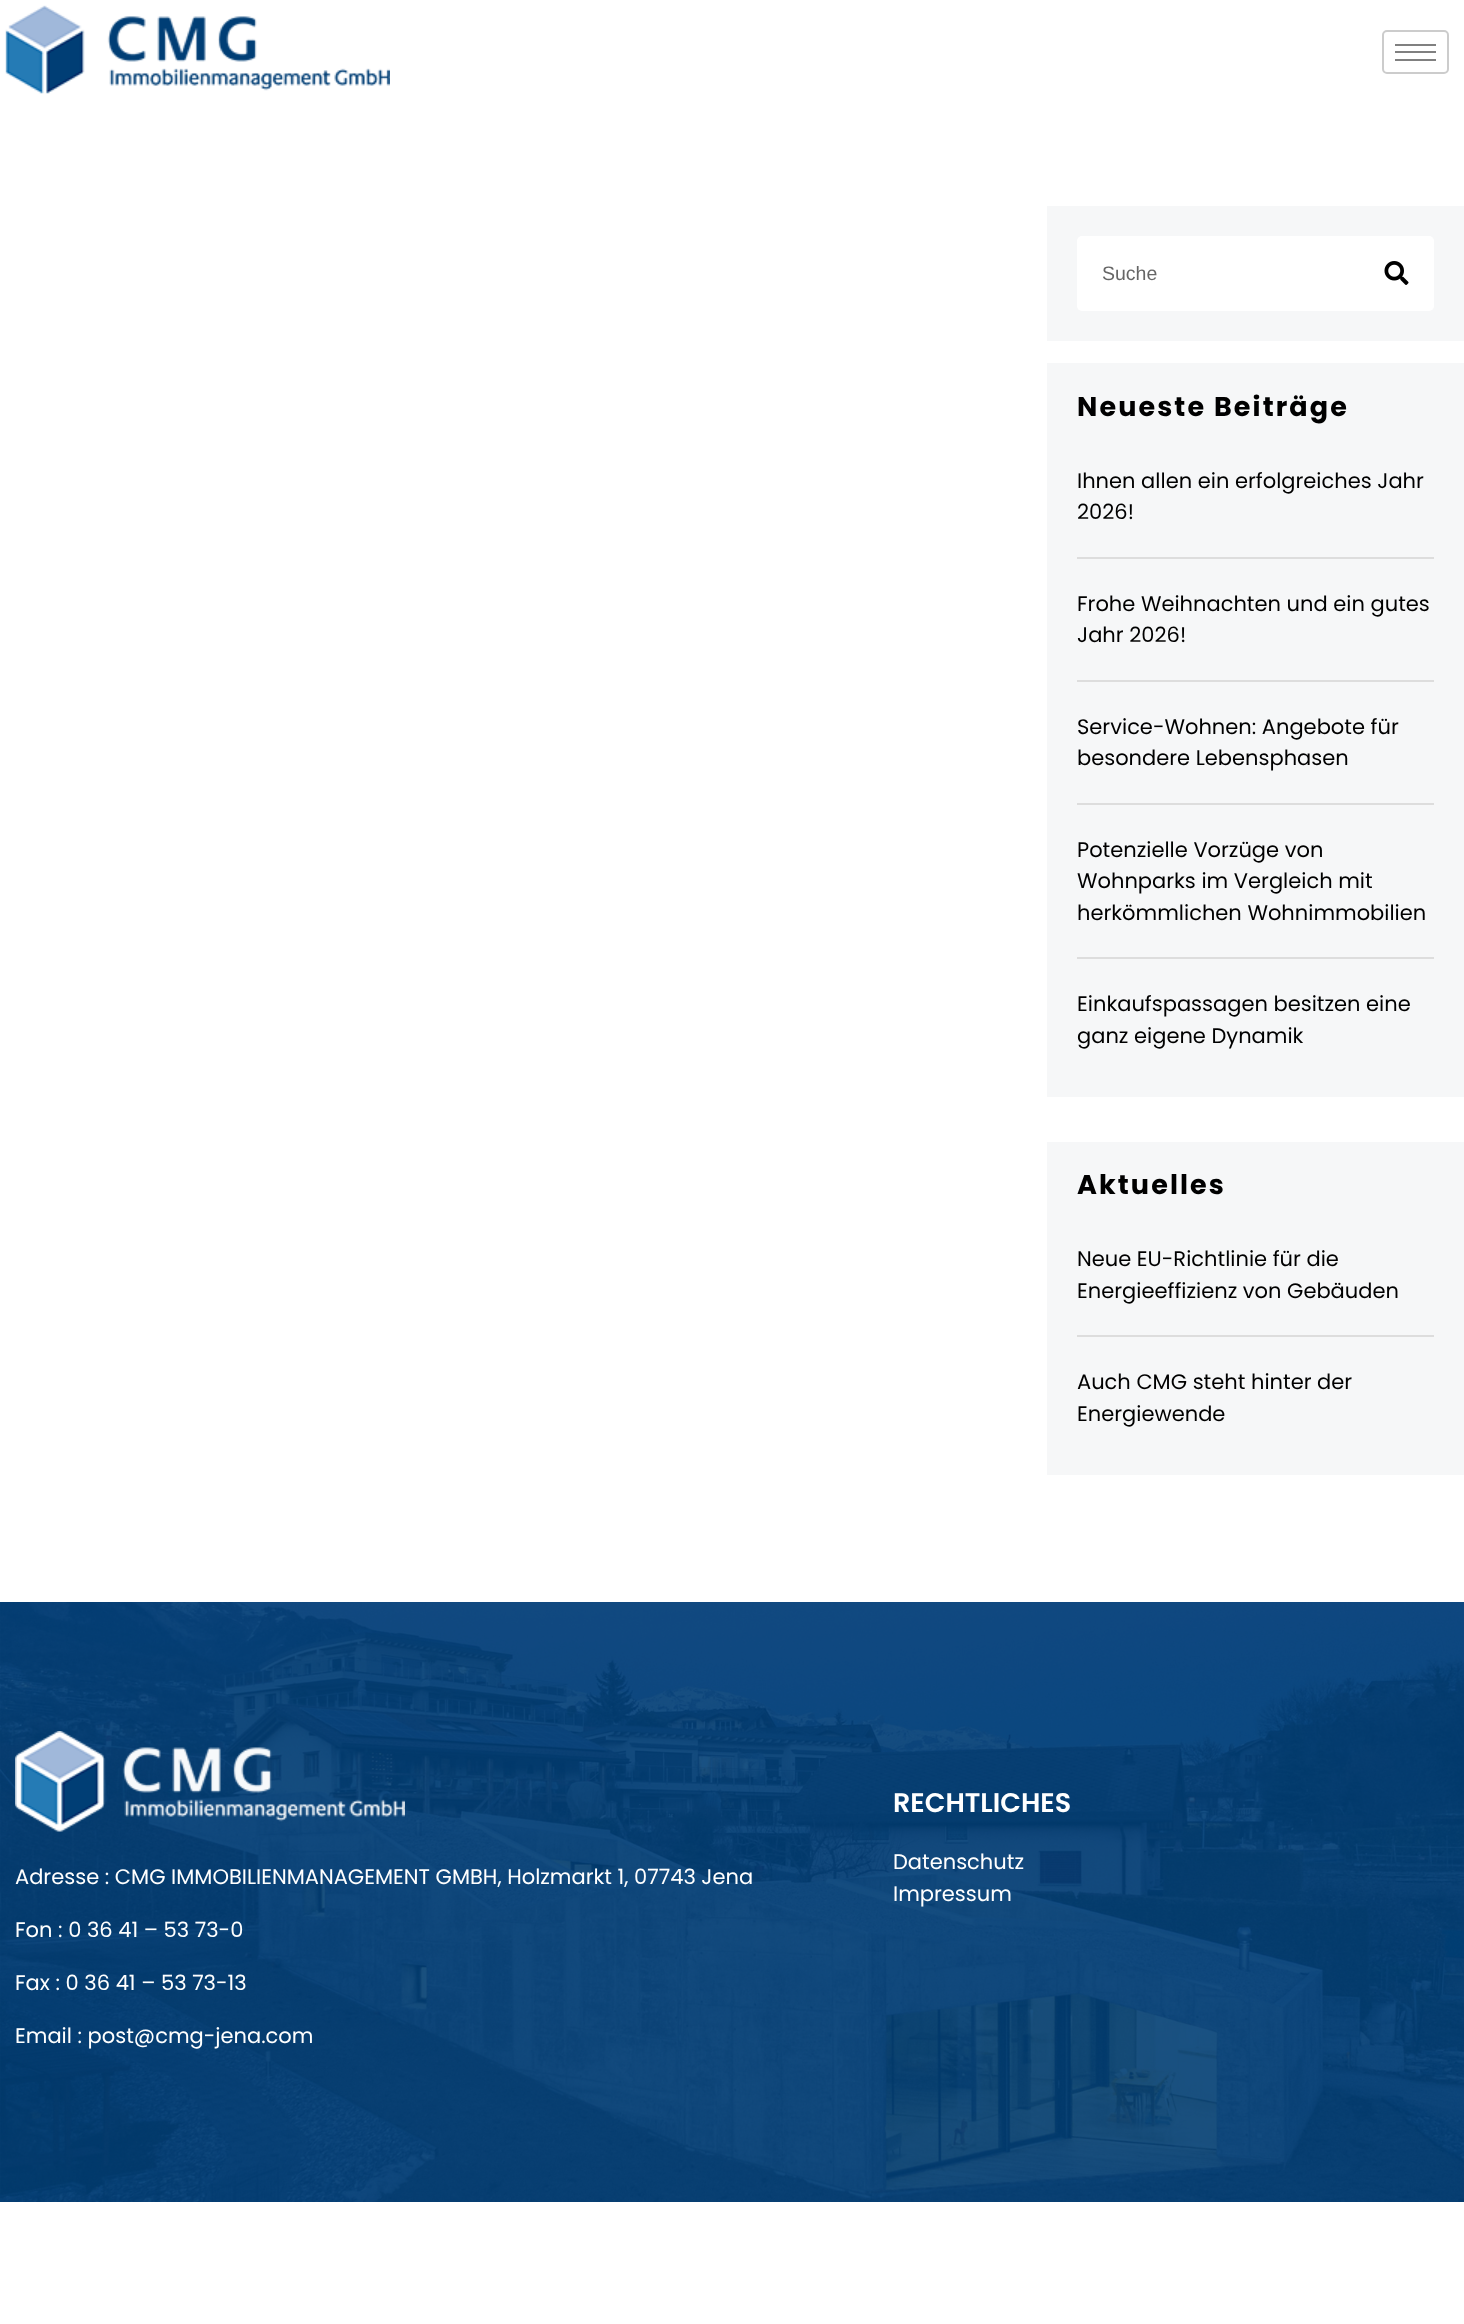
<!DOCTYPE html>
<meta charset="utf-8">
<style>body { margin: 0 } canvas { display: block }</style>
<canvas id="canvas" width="1464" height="2324"></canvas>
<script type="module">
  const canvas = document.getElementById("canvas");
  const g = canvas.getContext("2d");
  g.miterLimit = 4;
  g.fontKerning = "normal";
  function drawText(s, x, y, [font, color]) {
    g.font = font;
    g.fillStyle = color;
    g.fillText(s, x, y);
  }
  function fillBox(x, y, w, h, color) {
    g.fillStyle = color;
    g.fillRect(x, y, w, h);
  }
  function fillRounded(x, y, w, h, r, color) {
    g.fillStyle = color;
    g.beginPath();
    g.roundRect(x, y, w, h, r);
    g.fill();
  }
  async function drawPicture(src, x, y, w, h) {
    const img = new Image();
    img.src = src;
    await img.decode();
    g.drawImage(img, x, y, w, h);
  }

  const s1 = ["19.5px Liberation Sans", "#666666"];
  const s2 = ["bold 27px Poppins", "#000000"];
  const s3 = ["21px Poppins", "#000000"];
  const s4 = ["600 27px Poppins", "#FFFFFF"];
  const s5 = ["21px Poppins", "#FFFFFF"];

  fillBox(0, 0, 1464, 2324, "#FFFFFF");
  await drawPicture("pic1.png", 5, 5, 385, 89);
  g.beginPath();
  g.roundRect(1383, 31, 65, 42, 4);
  g.strokeStyle = "#CCCCCC";
  g.lineWidth = 2;
  g.stroke();
  fillBox(1395, 44, 41, 2, "#808080");
  fillBox(1395, 51, 41, 2, "#808080");
  fillBox(1395, 59, 41, 2, "#808080");
  fillBox(1047, 206, 417, 135, "#F6F7F8");
  fillRounded(1077, 236, 357, 75, 5, "#FFFFFF");
  drawText("Suche", 1102, 280, s1);
  await drawPicture("pic2.png", 1384, 261, 25, 24);
  fillBox(1047, 363, 417, 734, "#F6F7F8");
  g.letterSpacing = "2.1px";
  drawText("Neueste Beiträge", 1077, 416, s2);
  g.letterSpacing = "0px";
  drawText("Ihnen allen ein erfolgreiches Jahr", 1077, 488, s3);
  drawText("2026!", 1077, 519, s3);
  fillBox(1077, 557, 357, 2, "#DDDDDD");
  drawText("Frohe Weihnachten und ein gutes", 1077, 611, s3);
  drawText("Jahr 2026!", 1077, 642, s3);
  fillBox(1077, 680, 357, 2, "#DDDDDD");
  drawText("Service-Wohnen: Angebote für", 1077, 734, s3);
  drawText("besondere Lebensphasen", 1077, 765, s3);
  fillBox(1077, 803, 357, 2, "#DDDDDD");
  drawText("Potenzielle Vorzüge von", 1077, 857, s3);
  drawText("Wohnparks im Vergleich mit", 1077, 888, s3);
  drawText("herkömmlichen Wohnimmobilien", 1077, 920, s3);
  fillBox(1077, 957, 357, 2, "#DDDDDD");
  drawText("Einkaufspassagen besitzen eine", 1077, 1011, s3);
  drawText("ganz eigene Dynamik", 1077, 1043, s3);
  fillBox(1047, 1142, 417, 333, "#F6F7F8");
  g.letterSpacing = "2.1px";
  drawText("Aktuelles", 1077, 1194, s2);
  g.letterSpacing = "0px";
  drawText("Neue EU-Richtlinie für die", 1077, 1266, s3);
  drawText("Energieeffizienz von Gebäuden", 1077, 1298, s3);
  fillBox(1077, 1335, 357, 2, "#DDDDDD");
  drawText("Auch CMG steht hinter der", 1077, 1389, s3);
  drawText("Energiewende", 1077, 1421, s3);
  await drawPicture("pic3.png", 0, 1602, 1464, 600);
  drawText("RECHTLICHES", 893, 1812, s4);
  drawText("Datenschutz", 893, 1869, s5);
  drawText("Impressum", 893, 1901, s5);
  await drawPicture("pic4.png", 15, 1731, 390, 101);
  drawText("Adresse : CMG IMMOBILIENMANAGEMENT GMBH, Holzmarkt 1, 07743 Jena", 15, 1884, s5);
  drawText("Fon : 0 36 41 – 53 73-0", 15, 1937, s5);
  drawText("Fax : 0 36 41 – 53 73-13", 15, 1990, s5);
  drawText("Email : post@cmg-jena.com", 15, 2043, s5);
</script>
